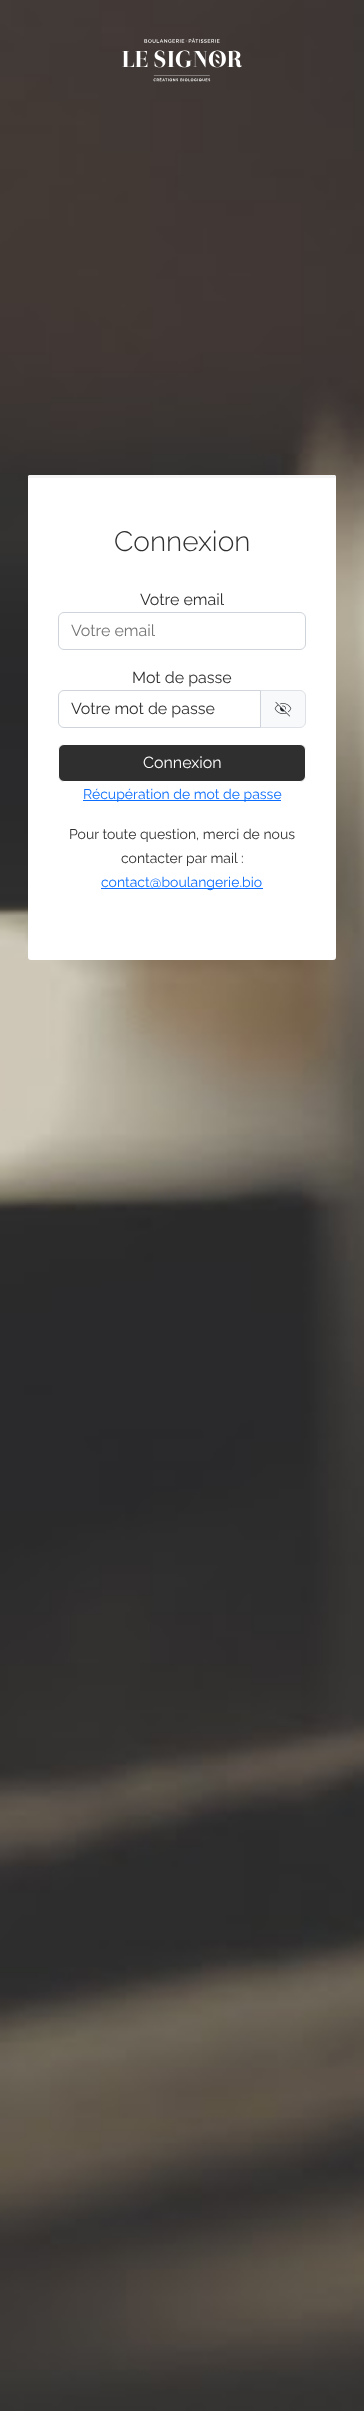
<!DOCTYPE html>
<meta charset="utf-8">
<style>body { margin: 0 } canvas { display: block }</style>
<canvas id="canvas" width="364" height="2411"></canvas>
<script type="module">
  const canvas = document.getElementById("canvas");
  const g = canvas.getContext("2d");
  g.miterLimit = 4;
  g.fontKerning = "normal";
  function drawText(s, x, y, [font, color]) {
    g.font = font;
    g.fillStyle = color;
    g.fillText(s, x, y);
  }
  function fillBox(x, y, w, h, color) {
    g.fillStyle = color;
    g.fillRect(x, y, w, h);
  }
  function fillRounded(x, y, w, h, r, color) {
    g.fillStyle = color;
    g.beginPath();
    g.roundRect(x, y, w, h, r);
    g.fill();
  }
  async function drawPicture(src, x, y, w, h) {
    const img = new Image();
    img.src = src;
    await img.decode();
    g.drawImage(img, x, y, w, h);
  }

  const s1 = ["300 28px Raleway", "#2F2F2F"];
  const s2 = ["16px Raleway", "#2F2F2F"];
  const s3 = ["16px Raleway", "#757575"];
  const s4 = ["16px Raleway", "#FFFFFF"];
  const s5 = ["14px Raleway", "#0D6EFD"];
  const s6 = ["14px Raleway", "#2F2F2F"];

  fillBox(0, 0, 364, 2411, "#FFFFFF");
  await drawPicture("pic1.png", 0, 0, 364, 2411);
  await drawPicture("pic2.png", 122, 38, 120, 44);
  fillRounded(28, 475, 308, 485, 3, "#FFFFFF");
  fillRounded(28, 475, 308, 3, 1.5, "#F4F4F4");
  drawText("Connexion", 114, 551, s1);
  drawText("Votre email", 140, 605, s2);
  g.beginPath();
  g.roundRect(58.5, 612.5, 247, 37, 5.5);
  g.strokeStyle = "#CED4DA";
  g.stroke();
  drawText("Votre email", 71, 636, s3);
  drawText("Mot de passe", 132, 683, s2);
  g.fillStyle = "#F8F9FA";
  g.beginPath();
  g.roundRect(260.5, 690.5, 45, 37, [0, 5.5, 5.5, 0]);
  g.fill();
  g.strokeStyle = "#DEE2E6";
  g.stroke();
  g.beginPath();
  g.roundRect(58.5, 690.5, 202, 37, [5.5, 0, 0, 5.5]);
  g.strokeStyle = "#CED4DA";
  g.stroke();
  drawText("Votre mot de passe", 71, 714, s2);
  await drawPicture("pic3.png", 274, 701, 18, 16);
  g.beginPath();
  g.roundRect(58.5, 744.5, 247, 37, 5.5);
  g.fill();
  g.strokeStyle = "#FFFFFF";
  g.stroke();
  drawText("Connexion", 143, 768, s4);
  fillBox(83, 800, 198, 1, "#0D6EFD");
  drawText("Récupération de mot de passe", 83, 799, s5);
  drawText("Pour toute question, merci de nous", 69, 839, s6);
  drawText("contacter par mail :", 121, 863, s6);
  fillBox(101, 888, 162, 1, "#0D6EFD");
  drawText("contact@boulangerie.bio", 101, 887, s5);
</script>
